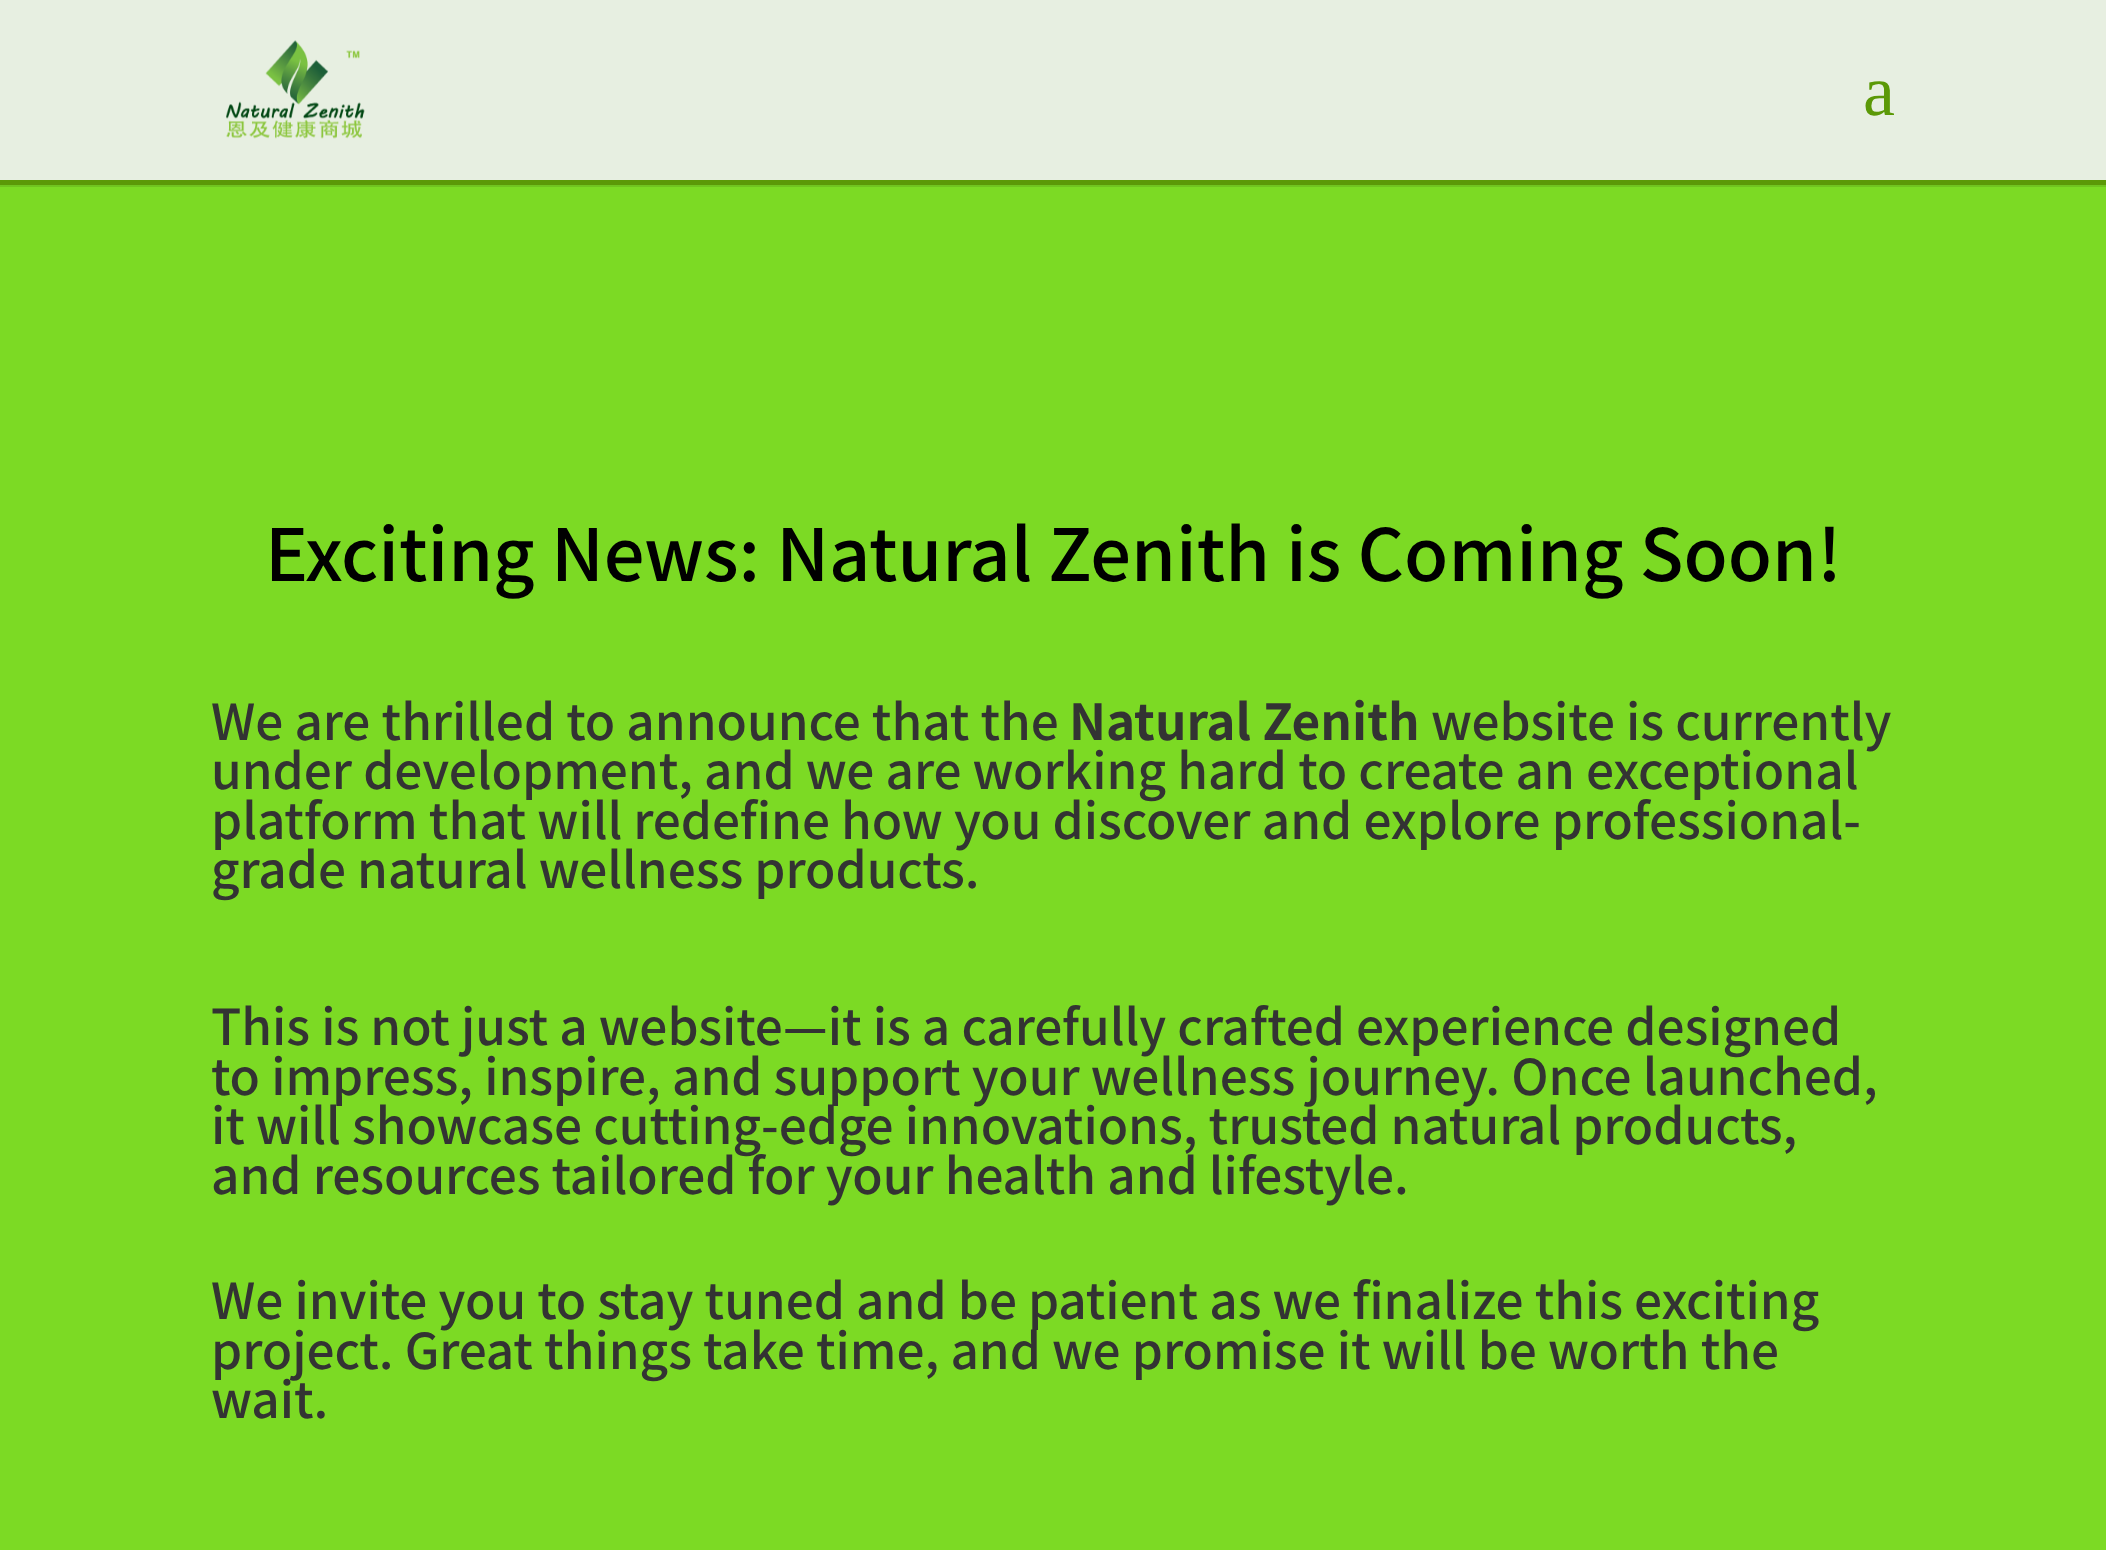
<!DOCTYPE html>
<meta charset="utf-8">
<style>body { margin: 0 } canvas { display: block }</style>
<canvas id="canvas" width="2106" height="1550"></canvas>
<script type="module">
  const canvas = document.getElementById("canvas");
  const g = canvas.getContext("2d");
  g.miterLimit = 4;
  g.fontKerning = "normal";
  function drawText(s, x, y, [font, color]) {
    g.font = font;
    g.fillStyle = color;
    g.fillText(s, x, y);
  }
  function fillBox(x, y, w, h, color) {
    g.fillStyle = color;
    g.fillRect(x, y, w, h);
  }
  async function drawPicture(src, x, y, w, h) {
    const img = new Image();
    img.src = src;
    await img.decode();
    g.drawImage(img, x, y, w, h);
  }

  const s1 = ["72px Liberation Serif", "#5B9907"];
  const s2 = ["500 72px Noto Sans SC", "#000000"];
  const s3 = ["500 49.5px Noto Sans SC", "#333333"];
  const s4 = ["bold 49.5px Noto Sans SC", "#333333"];

  fillBox(0, 0, 2106, 1550, "#7CDA24");
  fillBox(0, 185, 2106, 2, "#70C420");
  fillBox(0, 0, 2106, 180, "#E7EFE1");
  fillBox(0, 180, 2106, 5, "#5B9907");
  await drawPicture("pic1.png", 226, 40, 139, 99);
  drawText("a", 1863, 115, s1);
  drawText("Exciting News: Natural Zenith is Coming Soon!", 265, 581, s2);
  drawText("We are thrilled to announce that the", 211, 740, s3);
  drawText("Natural Zenith", 1069, 740, s4);
  drawText("website is currently", 1431, 740, s3);
  drawText("under development, and we are working hard to create an exceptional", 211, 789, s3);
  drawText("platform that will redefine how you discover and explore professional-", 211, 839, s3);
  drawText("grade natural wellness products.", 211, 888, s3);
  drawText("This is not just a website—it is a carefully crafted experience designed", 211, 1045, s3);
  drawText("to impress, inspire, and support your wellness journey. Once launched,", 211, 1095, s3);
  drawText("it will showcase cutting-edge innovations, trusted natural products,", 211, 1144, s3);
  drawText("and resources tailored for your health and lifestyle.", 211, 1194, s3);
  drawText("We invite you to stay tuned and be patient as we finalize this exciting", 211, 1319, s3);
  drawText("project. Great things take time, and we promise it will be worth the", 211, 1369, s3);
  drawText("wait.", 211, 1418, s3);
</script>
